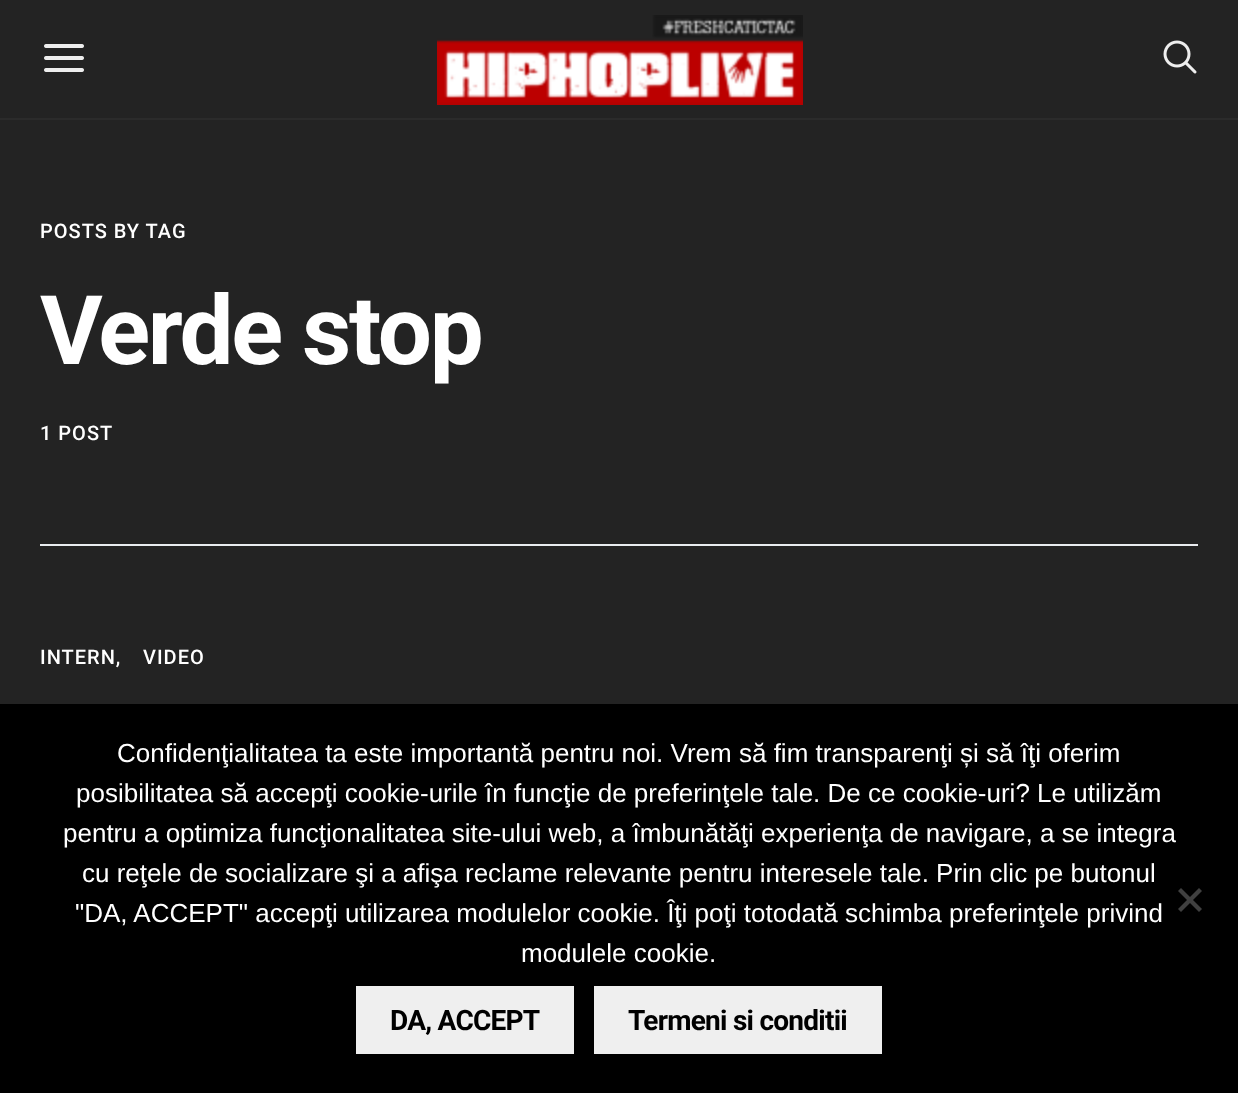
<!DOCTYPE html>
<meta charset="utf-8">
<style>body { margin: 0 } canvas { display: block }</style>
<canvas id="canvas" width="1238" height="1093"></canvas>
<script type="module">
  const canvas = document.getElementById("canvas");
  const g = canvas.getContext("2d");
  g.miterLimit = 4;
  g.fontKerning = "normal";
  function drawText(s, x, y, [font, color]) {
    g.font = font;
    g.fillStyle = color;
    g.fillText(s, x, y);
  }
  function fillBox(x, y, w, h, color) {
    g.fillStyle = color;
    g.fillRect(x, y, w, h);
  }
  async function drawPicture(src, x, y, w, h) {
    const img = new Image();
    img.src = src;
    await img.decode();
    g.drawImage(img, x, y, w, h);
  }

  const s1 = ["500 20px Roboto", "#FFFFFF"];
  const s2 = ["bold 96px Roboto", "#FFFFFF"];
  const s3 = ["26px Liberation Sans", "#FFFFFF"];
  const s4 = ["bold 28px Roboto", "#000000"];

  fillBox(0, 0, 1238, 1093, "#232323");
  fillBox(0, 118, 1238, 2, "#2B2B2B");
  await drawPicture("pic1.png", 44, 44, 40, 28);
  await drawPicture("pic2.png", 437, 15, 366, 90);
  await drawPicture("pic3.png", 1163, 40, 34, 34);
  g.letterSpacing = "1px";
  drawText("POSTS BY TAG", 40, 238, s1);
  g.letterSpacing = "-2.4px";
  drawText("Verde stop", 40, 364, s2);
  g.letterSpacing = "1px";
  drawText("1 POST", 40, 440, s1);
  fillBox(40, 544, 1158, 2, "#E9ECEF");
  drawText("INTERN,", 40, 664, s1);
  drawText("VIDEO", 143, 664, s1);
  fillBox(0, 704, 1238, 389, "#000000");
  g.letterSpacing = "0px";
  drawText("Confidenţialitatea ta este importantă pentru noi. Vrem să fim transparenţi și să îţi oferim", 117, 762, s3);
  drawText("posibilitatea să accepţi cookie-urile în funcţie de preferinţele tale. De ce cookie-uri? Le utilizăm", 76, 802, s3);
  drawText("pentru a optimiza funcţionalitatea site-ului web, a îmbunătăţi experienţa de navigare, a se integra", 63, 842, s3);
  drawText("cu reţele de socializare şi a afişa reclame relevante pentru interesele tale. Prin clic pe butonul", 82, 882, s3);
  drawText("\"DA, ACCEPT\" accepţi utilizarea modulelor cookie. Îţi poţi totodată schimba preferinţele privind", 75, 922, s3);
  drawText("modulele cookie.", 521, 962, s3);
  g.fillStyle = "#404040";
  g.beginPath();
  g.moveTo(1199, 888);
  g.lineTo(1202, 891);
  g.lineTo(1181, 912);
  g.lineTo(1178, 909);
  g.closePath();
  g.fill();
  g.beginPath();
  g.moveTo(1178, 891);
  g.lineTo(1181, 888);
  g.lineTo(1202, 909);
  g.lineTo(1199, 912);
  g.closePath();
  g.fill();
  fillBox(356, 986, 218, 68, "#EFEFEF");
  g.letterSpacing = "-0.75px";
  drawText("DA, ACCEPT", 390, 1030, s4);
  fillBox(594, 986, 288, 68, "#EFEFEF");
  drawText("Termeni si conditii", 628, 1030, s4);
</script>
